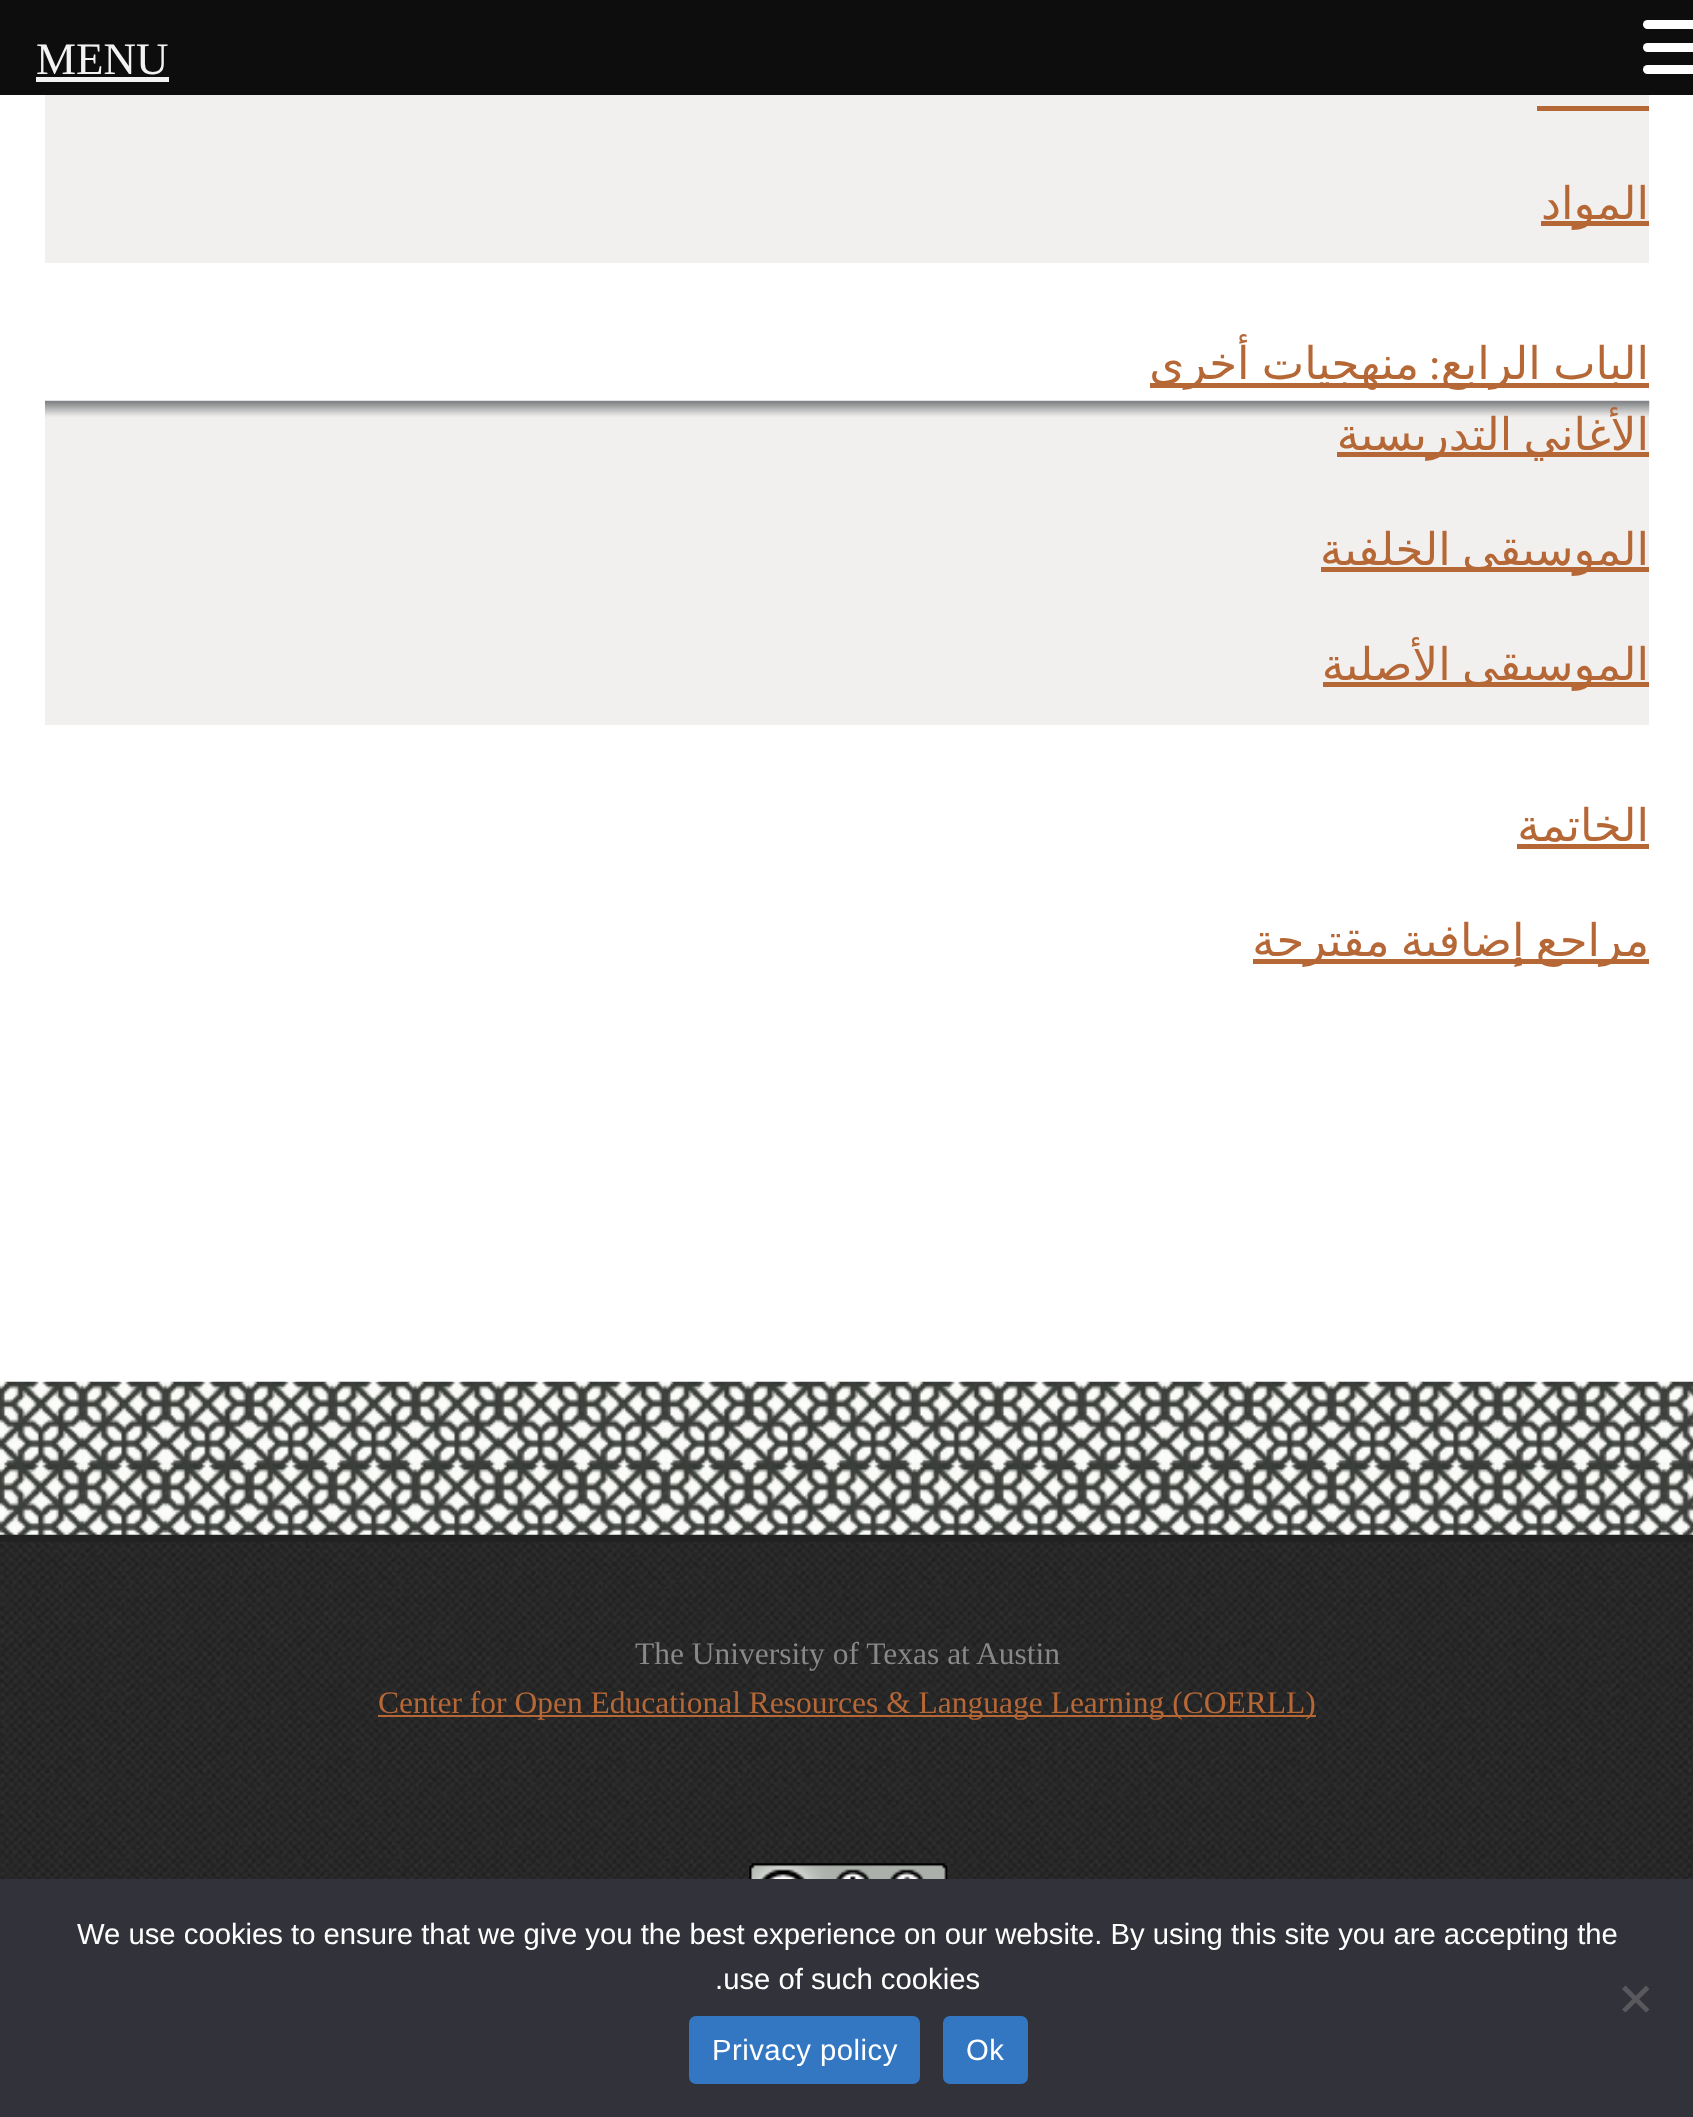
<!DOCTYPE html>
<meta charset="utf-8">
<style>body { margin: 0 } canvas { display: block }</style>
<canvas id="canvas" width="1693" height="2117"></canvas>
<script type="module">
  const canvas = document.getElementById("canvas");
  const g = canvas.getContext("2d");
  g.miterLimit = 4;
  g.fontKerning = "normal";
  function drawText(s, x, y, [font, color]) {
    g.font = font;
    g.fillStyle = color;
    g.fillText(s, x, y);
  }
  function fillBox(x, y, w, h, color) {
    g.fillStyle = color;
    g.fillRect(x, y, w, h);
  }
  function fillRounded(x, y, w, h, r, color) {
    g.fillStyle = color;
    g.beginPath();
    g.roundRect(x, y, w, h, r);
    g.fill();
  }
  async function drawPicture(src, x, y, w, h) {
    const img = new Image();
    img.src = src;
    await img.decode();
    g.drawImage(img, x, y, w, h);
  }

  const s1 = ["45px Liberation Serif", "#F2F2F2"];
  const s2 = ["45px DejaVu Sans", "#B66736"];
  const s3 = ["45px Liberation Serif", "#B66736"];
  const s4 = ["31.5px Liberation Serif", "#888888"];
  const s5 = ["31.5px Liberation Serif", "#B66736"];
  const s6 = ["29.25px Liberation Sans", "#FFFFFF"];

  fillBox(0, 0, 1693, 2117, "#FFFFFF");
  fillBox(0, 0, 1693, 95, "#0D0D0D");
  drawText("MENU", 36, 74, s1);
  fillBox(36, 77, 133, 5, "#F2F2F2");
  fillRounded(1643, 20, 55, 9, 4.5, "#FFFFFF");
  fillRounded(1643, 43, 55, 9, 4.5, "#FFFFFF");
  fillRounded(1643, 65, 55, 9, 4.5, "#FFFFFF");
  fillBox(45, 95, 1604, 168, "#F2F0EF");
  fillBox(1537, 106, 112, 5, "#B66736");
  fillBox(1541, 221, 108, 5, "#B66736");
  g.direction = "rtl";
  drawText("المواد", 1649, 219, s2);
  fillBox(1150, 383, 499, 5, "#B66736");
  g.wordSpacing = "-2px";
  drawText("منهجيات أخرى", 1419, 379, s2);
  g.wordSpacing = "0px";
  drawText(":", 1441, 379, s3);
  g.wordSpacing = "-2px";
  drawText("الباب الرابع", 1649, 379, s2);
  fillBox(45, 401, 1604, 324, "#F2F0EF");
  await drawPicture("pic1.png", 45, 400, 1605, 17);
  fillBox(1337, 452, 312, 5, "#B66736");
  g.wordSpacing = "-3px";
  drawText("الأغاني التدريسية", 1649, 450, s2);
  fillBox(1321, 567, 328, 5, "#B66736");
  drawText("الموسيقى الخلفية", 1649, 565, s2);
  fillBox(1323, 682, 326, 5, "#B66736");
  drawText("الموسيقى الأصلية", 1649, 680, s2);
  g.wordSpacing = "0px";
  drawText("الخاتمة", 1649, 841, s2);
  fillBox(1517, 844, 132, 5, "#B66736");
  fillBox(1253, 959, 396, 5, "#B66736");
  g.wordSpacing = "-3px";
  drawText("مراجع إضافية مقترحة", 1649, 956, s2);
  await drawPicture("pic2.png", 0, 1381, 1693, 154);
  await drawPicture("pic3.png", 0, 1534, 1693, 345);
  fillBox(0, 1535, 1693, 7, "#222222");
  g.wordSpacing = "0px";
  g.direction = "ltr";
  drawText("The University of Texas at Austin", 635, 1664, s4);
  fillBox(378, 1715, 938, 2, "#B66736");
  drawText("Center for Open Educational Resources & Language Learning (COERLL)", 378, 1713, s5);
  await drawPicture("pic4.png", 749, 1863, 199, 16);
  fillBox(0, 1879, 1693, 238, "#32323A");
  drawText("We use cookies to ensure that we give you the best experience on our website. By using this site you are accepting the", 77, 1944, s6);
  drawText(".use of such cookies", 715, 1989, s6);
  g.fillStyle = "#59595D";
  g.beginPath();
  g.moveTo(1646, 1985.5);
  g.lineTo(1649.5, 1989);
  g.lineTo(1625.5, 2012.5);
  g.lineTo(1622, 2009.5);
  g.closePath();
  g.fill();
  g.beginPath();
  g.moveTo(1622, 1989);
  g.lineTo(1625.5, 1985.5);
  g.lineTo(1649.5, 2009.5);
  g.lineTo(1646, 2012.5);
  g.closePath();
  g.fill();
  fillRounded(689, 2016, 231, 68, 7, "#3377C3");
  g.letterSpacing = "0.5px";
  drawText("Privacy policy", 712, 2060, s6);
  fillRounded(943, 2016, 85, 68, 7, "#3377C3");
  drawText("Ok", 966, 2060, s6);
</script>
